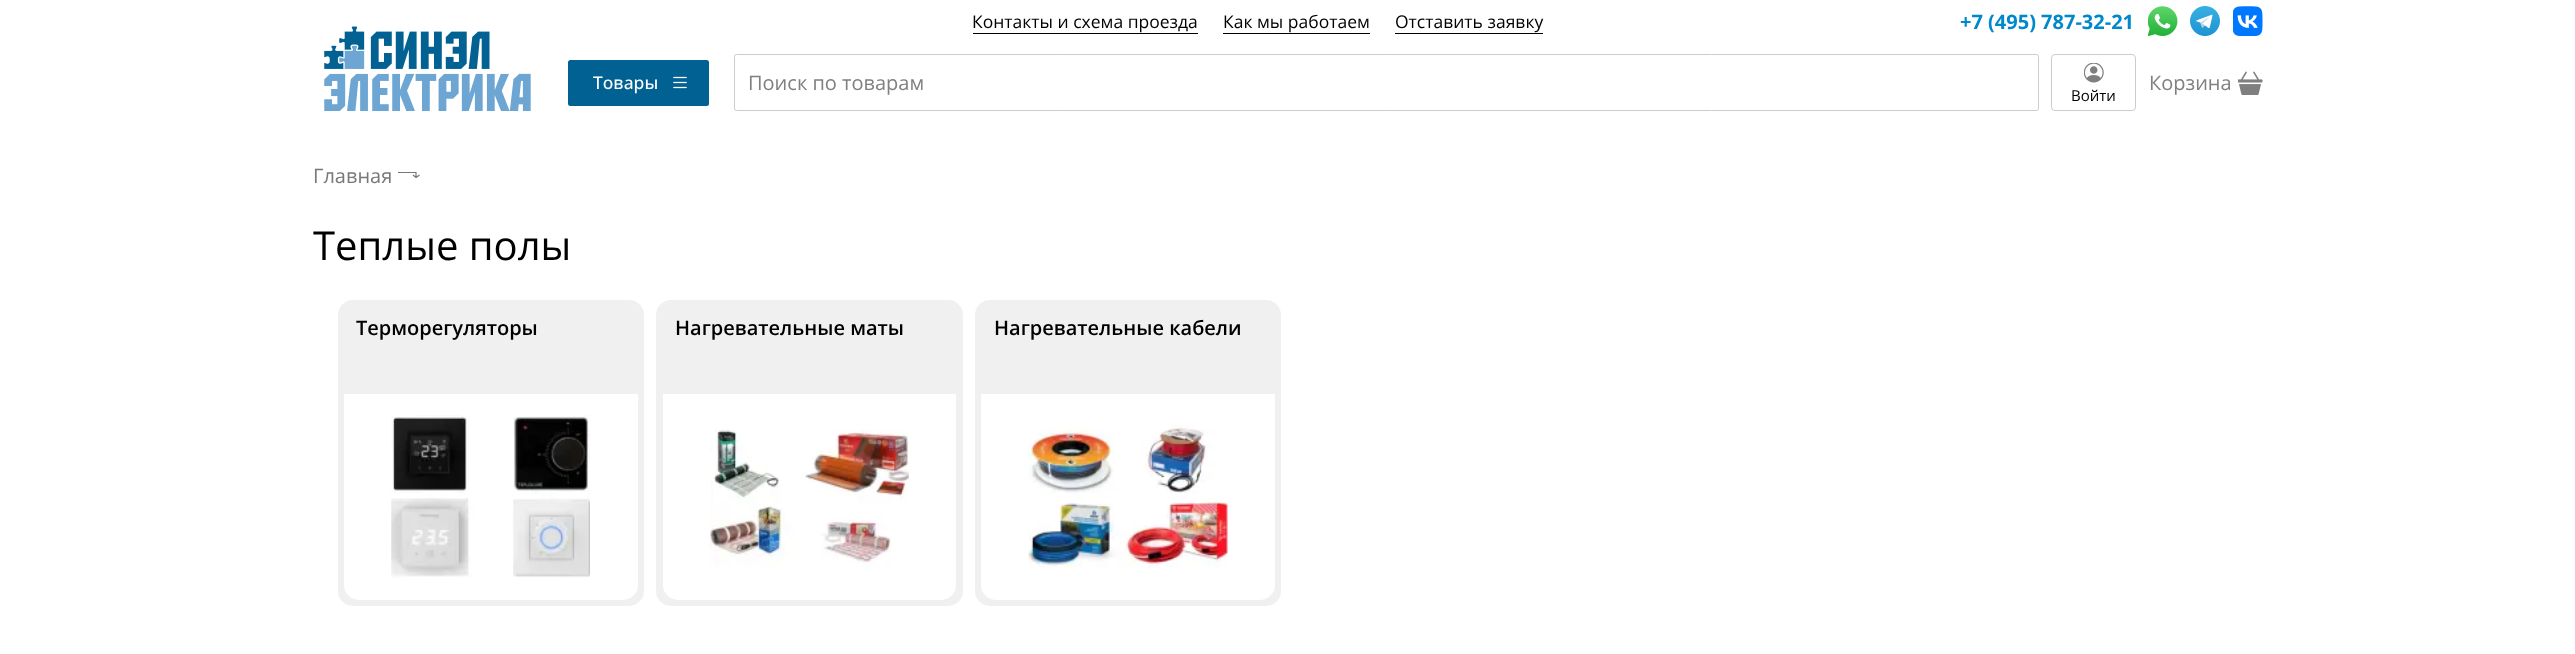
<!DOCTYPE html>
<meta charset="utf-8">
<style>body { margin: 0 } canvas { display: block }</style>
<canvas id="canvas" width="2575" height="654"></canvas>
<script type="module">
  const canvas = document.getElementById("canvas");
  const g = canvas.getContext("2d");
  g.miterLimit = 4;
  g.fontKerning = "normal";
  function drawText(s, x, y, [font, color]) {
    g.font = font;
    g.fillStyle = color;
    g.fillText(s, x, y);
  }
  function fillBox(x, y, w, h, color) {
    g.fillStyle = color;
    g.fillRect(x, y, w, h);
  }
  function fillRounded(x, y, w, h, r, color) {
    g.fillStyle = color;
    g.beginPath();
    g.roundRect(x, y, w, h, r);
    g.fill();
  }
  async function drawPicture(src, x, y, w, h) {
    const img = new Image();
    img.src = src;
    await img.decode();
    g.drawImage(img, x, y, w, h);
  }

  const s1 = ["17.5px Open Sans", "#000000"];
  const s2 = ["bold 20px Open Sans", "#0088CC"];
  const s3 = ["500 17.5px Open Sans", "#FFFFFF"];
  const s4 = ["20px Open Sans", "#808080"];
  const s5 = ["15px Open Sans", "#000000"];
  const s6 = ["20px Open Sans", "#787878"];
  const s7 = ["40px Open Sans", "#000000"];
  const s8 = ["600 20px Open Sans", "#000000"];

  fillBox(0, 0, 2575, 654, "#FFFFFF");
  await drawPicture("pic1.png", 324, 26, 207, 85);
  drawText("Контакты и схема проезда", 972, 28, s1);
  fillBox(973, 33, 225, 1, "#000000");
  drawText("Как мы работаем", 1223, 28, s1);
  fillBox(1223, 33, 147, 1, "#000000");
  drawText("Отставить заявку", 1395, 28, s1);
  fillBox(1395, 33, 148, 1, "#000000");
  drawText("+7 (495) 787-32-21", 1960, 29, s2);
  await drawPicture("pic2.png", 2148, 6, 30, 30);
  await drawPicture("pic3.png", 2190, 6, 30, 30);
  await drawPicture("pic4.png", 2233, 6, 30, 30);
  fillRounded(568, 60, 141, 46, 2.5, "#006192");
  drawText("Товары", 593, 89, s3);
  await drawPicture("pic5.png", 673, 76, 14, 13);
  g.beginPath();
  g.roundRect(734.5, 54.5, 1304, 56, 2);
  g.strokeStyle = "#CCCCCC";
  g.stroke();
  drawText("Поиск по товарам", 748, 90, s4);
  g.beginPath();
  g.roundRect(2051.5, 54.5, 84, 56, 3.5);
  g.stroke();
  await drawPicture("pic6.png", 2084, 63, 20, 20);
  drawText("Войти", 2071, 101, s5);
  drawText("Корзина", 2149, 90, s4);
  await drawPicture("pic7.png", 2238, 71, 25, 24);
  drawText("Главная", 313, 183, s6);
  g.save();
  g.beginPath();
  g.rect(398, 171, 22, 8);
  g.clip();
  g.beginPath();
  g.moveTo(397.5, 172.5);
  g.lineTo(416, 172.5);
  g.lineTo(416, 177.5);
  g.moveTo(416, 177.5);
  g.lineTo(419.5, 175);
  g.moveTo(416, 177.5);
  g.lineTo(413, 175);
  g.strokeStyle = "#787878";
  g.lineWidth = 1.2;
  g.stroke();
  g.restore();
  drawText("Теплые полы", 313, 260, s7);
  fillRounded(338, 300, 306, 306, 15, "#F0F0F0");
  drawText("Терморегуляторы", 356, 335, s8);
  g.fillStyle = "#FFFFFF";
  g.beginPath();
  g.roundRect(344, 394, 294, 206, [0, 0, 15, 15]);
  g.fill();
  await drawPicture("pic8.png", 391, 415, 199, 163);
  fillRounded(656, 300, 307, 306, 15, "#F0F0F0");
  drawText("Нагревательные маты", 675, 335, s8);
  g.fillStyle = "#FFFFFF";
  g.beginPath();
  g.roundRect(663, 394, 293, 206, [0, 0, 15, 15]);
  g.fill();
  await drawPicture("pic9.png", 710, 429, 199, 138);
  fillRounded(975, 300, 306, 306, 15, "#F0F0F0");
  drawText("Нагревательные кабели", 994, 335, s8);
  g.fillStyle = "#FFFFFF";
  g.beginPath();
  g.roundRect(981, 394, 294, 206, [0, 0, 15, 15]);
  g.fill();
  await drawPicture("pic10.png", 1028, 425, 200, 143);
</script>
